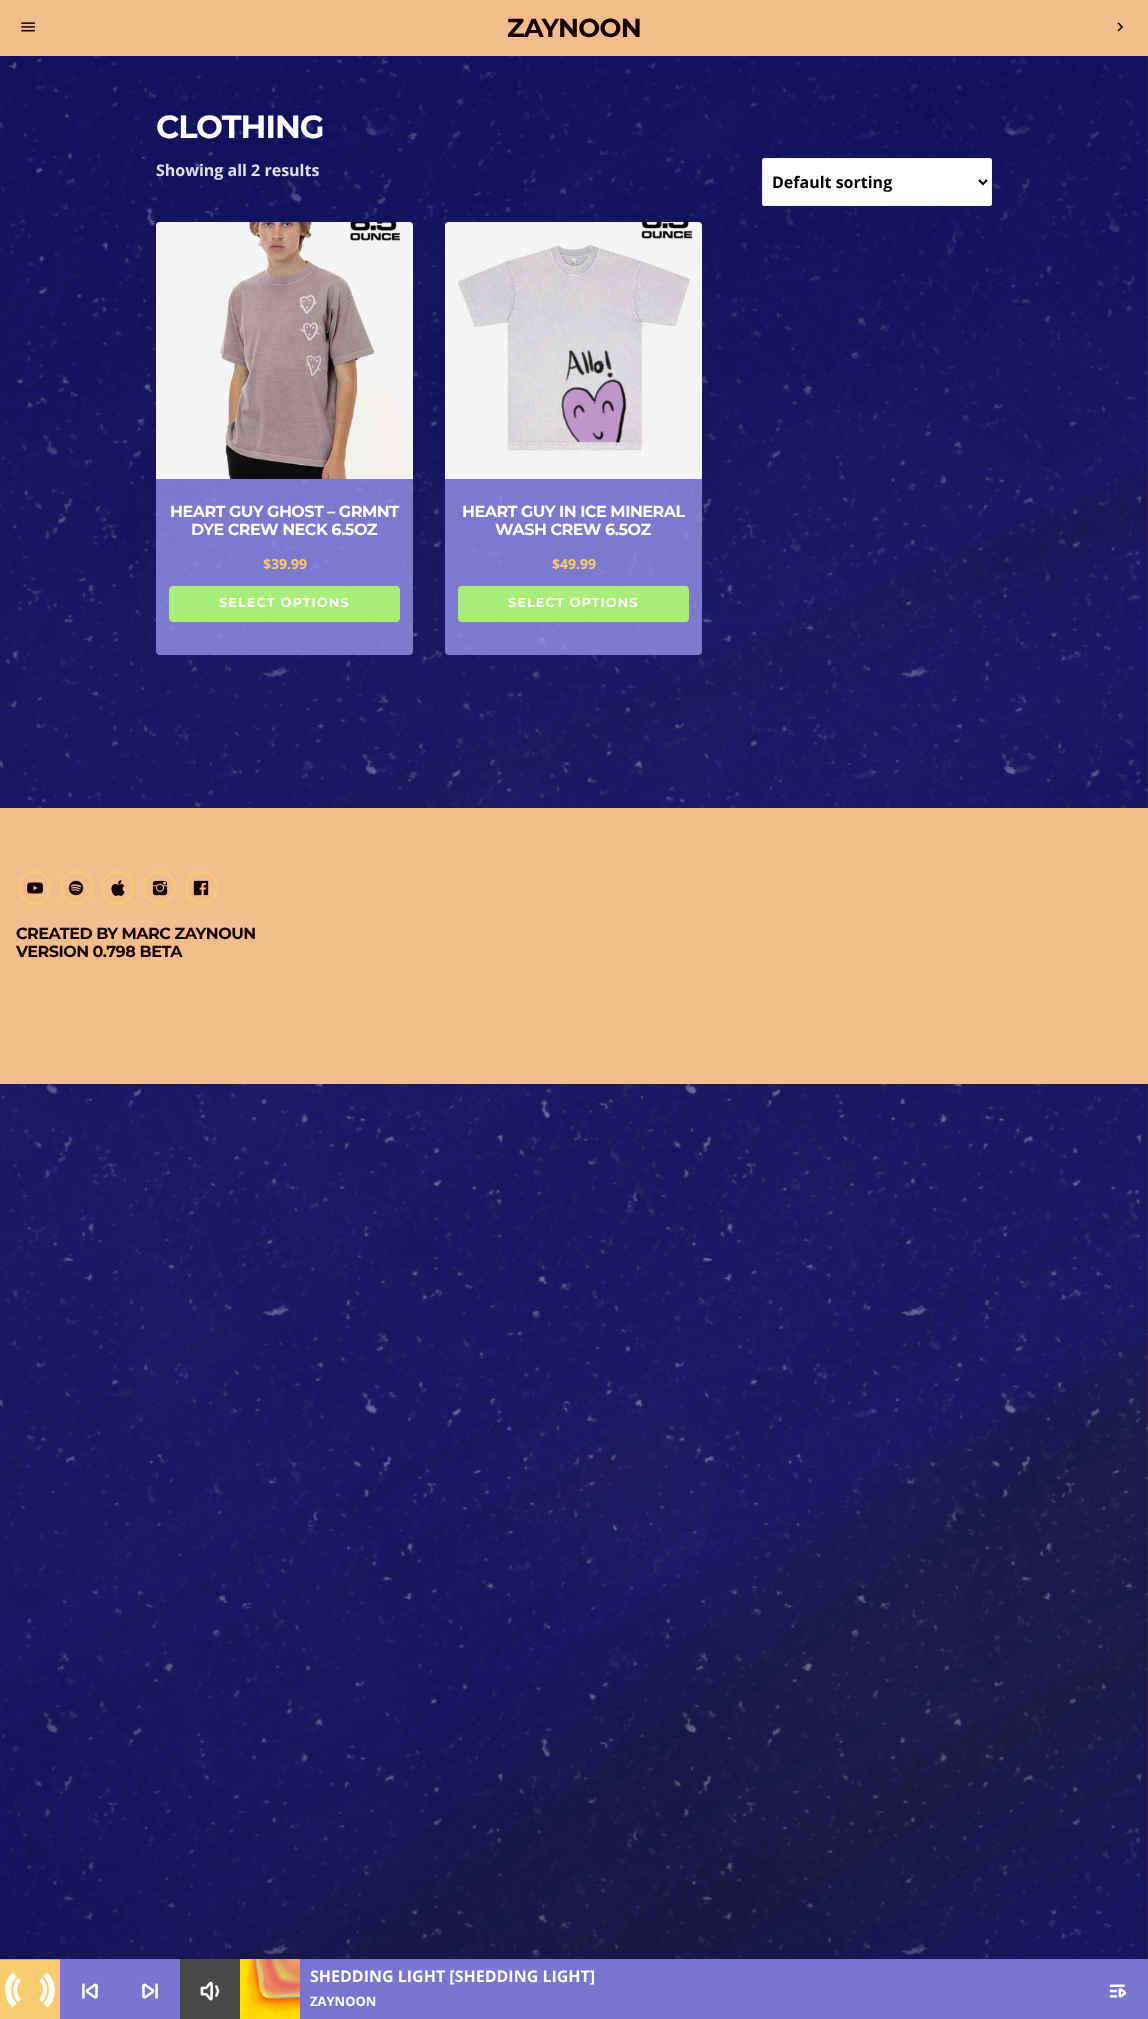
<!DOCTYPE html>
<meta charset="utf-8">
<style>body { margin: 0 } canvas { display: block }</style>
<canvas id="canvas" width="1148" height="2019"></canvas>
<script type="module">
  const canvas = document.getElementById("canvas");
  const g = canvas.getContext("2d");
  g.miterLimit = 4;
  g.fontKerning = "normal";
  function drawText(s, x, y, [font, color]) {
    g.font = font;
    g.fillStyle = color;
    g.fillText(s, x, y);
  }
  function fillBox(x, y, w, h, color) {
    g.fillStyle = color;
    g.fillRect(x, y, w, h);
  }
  function fillRounded(x, y, w, h, r, color) {
    g.fillStyle = color;
    g.beginPath();
    g.roundRect(x, y, w, h, r);
    g.fill();
  }
  async function drawPicture(src, x, y, w, h) {
    const img = new Image();
    img.src = src;
    await img.decode();
    g.drawImage(img, x, y, w, h);
  }

  const s1 = ["bold 26px Montserrat", "#140000"];
  const s2 = ["bold 32px Montserrat", "#FFFFFF"];
  const s3 = ["bold 16px Open Sans", "#E0E0EA"];
  const s4 = ["bold 16px Open Sans", "#000000"];
  const s5 = ["bold 16px Montserrat", "#FFFFFF"];
  const s6 = ["bold 14px Open Sans", "#F9CB71"];
  const s7 = ["bold 13px Montserrat", "#FFFFFF"];
  const s8 = ["bold 16px Montserrat", "#140000"];
  const s9 = ["bold 16px Open Sans", "#FFFFFF"];
  const s10 = ["bold 13px Open Sans", "#FFFFFF"];

  fillBox(0, 0, 1148, 2019, "#FFFFFF");
  fillBox(0, 0, 1148, 56, "#F2BD8C");
  await drawPicture("pic1.png", 21, 22, 14, 10);
  g.letterSpacing = "-0.75px";
  drawText("ZAYNOON", 507, 37, s1);
  await drawPicture("pic2.png", 1117, 22, 6, 10);
  await drawPicture("pic11.png", 1147, 56, 1, 1903);
  await drawPicture("pic3.png", 0, 56, 1148, 1903);
  g.letterSpacing = "-1px";
  drawText("CLOTHING", 156, 138, s2);
  g.letterSpacing = "0px";
  drawText("Showing all 2 results", 156, 176, s3);
  g.fillStyle = "#FFFFFF";
  g.beginPath();
  g.roundRect(762.5, 158.5, 229, 47, 1.5);
  g.fill();
  g.strokeStyle = "#F2F2F2";
  g.stroke();
  g.beginPath();
  g.moveTo(979, 180);
  g.lineTo(983, 184);
  g.lineTo(987, 180);
  g.strokeStyle = "#000000";
  g.lineWidth = 2;
  g.stroke();
  drawText("Default sorting", 772, 188, s4);
  fillRounded(156, 222, 257, 433, 4, "rgba(158, 152, 240, 0.76)");
  await drawPicture("pic4.png", 156, 222, 257, 257);
  g.letterSpacing = "-0.5px";
  drawText("HEART GUY GHOST – GRMNT", 170, 517, s5);
  drawText("DYE CREW NECK 6.5OZ", 191, 535, s5);
  g.letterSpacing = "0px";
  drawText("$39.99", 263, 569, s6);
  fillRounded(169, 586, 231, 36, 4, "#A8EE76");
  g.letterSpacing = "1px";
  drawText("SELECT OPTIONS", 219, 607, s7);
  fillRounded(445, 222, 257, 433, 4, "rgba(158, 152, 240, 0.76)");
  await drawPicture("pic5.png", 445, 222, 257, 257);
  g.letterSpacing = "-0.5px";
  drawText("HEART GUY IN ICE MINERAL", 462, 517, s5);
  drawText("WASH CREW 6.5OZ", 495, 535, s5);
  g.letterSpacing = "0px";
  drawText("$49.99", 552, 569, s6);
  fillRounded(458, 586, 231, 36, 4, "#A8EE76");
  g.letterSpacing = "1px";
  drawText("SELECT OPTIONS", 508, 607, s7);
  fillBox(0, 808, 1148, 276, "#F2BD8C");
  g.beginPath();
  g.arc(34.5, 887.5, 15.5, 0, Math.PI * 2);
  g.strokeStyle = "#F9CB71";
  g.stroke();
  await drawPicture("pic6.png", 27, 882, 16, 12);
  g.beginPath();
  g.arc(76.5, 887.5, 15.5, 0, Math.PI * 2);
  g.stroke();
  await drawPicture("pic7.png", 68, 880, 16, 16);
  g.beginPath();
  g.arc(117.5, 887.5, 15.5, 0, Math.PI * 2);
  g.stroke();
  await drawPicture("pic8.png", 111, 880, 14, 16);
  g.beginPath();
  g.arc(159.5, 887.5, 15.5, 0, Math.PI * 2);
  g.stroke();
  await drawPicture("pic9.png", 152, 880, 16, 16);
  g.beginPath();
  g.arc(201.5, 887.5, 15.5, 0, Math.PI * 2);
  g.stroke();
  await drawPicture("pic10.png", 193, 880, 16, 16);
  g.letterSpacing = "-0.5px";
  drawText("CREATED BY MARC ZAYNOUN", 16, 939, s8);
  drawText("VERSION 0.798 BETA", 16, 957, s8);
  fillBox(60, 1959, 1088, 60, "#7876CE");
  fillBox(0, 1959, 60, 1, "#C692FB");
  fillBox(0, 1960, 60, 59, "#F9CB71");
  g.beginPath();
  g.moveTo(40.5, 1979.5);
  g.bezierCurveTo(46.5, 1985, 46.5, 1995, 40.5, 2000.5);
  g.moveTo(19.5, 2000.5);
  g.bezierCurveTo(13.5, 1995, 13.5, 1985, 19.5, 1979.5);
  g.strokeStyle = "#FFFFFF";
  g.lineWidth = 4;
  g.stroke();
  g.beginPath();
  g.moveTo(45.5, 1974.5);
  g.bezierCurveTo(54, 1983, 54, 1997, 45.5, 2005.5);
  g.moveTo(14.5, 2005.5);
  g.bezierCurveTo(6, 1997, 6, 1983, 14.5, 1974.5);
  g.lineWidth = 6;
  g.stroke();
  await drawPicture("pic12.png", 82, 1983, 16, 16);
  await drawPicture("pic13.png", 142, 1983, 16, 16);
  fillBox(180, 1959, 60, 60, "#494949");
  await drawPicture("pic14.png", 200, 1981, 20, 20);
  await drawPicture("pic15.png", 240, 1959, 60, 60);
  g.letterSpacing = "0px";
  drawText("SHEDDING LIGHT [SHEDDING LIGHT]", 310, 1982, s9);
  drawText("ZAYNOON", 310, 2006, s10);
  await drawPicture("pic16.png", 1109, 1984, 18, 14);
</script>
